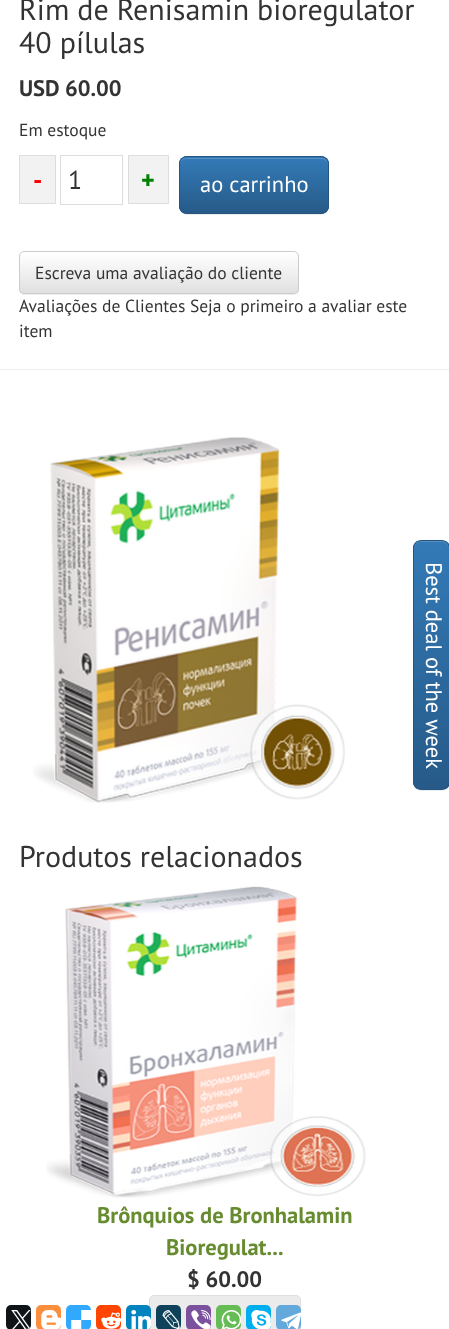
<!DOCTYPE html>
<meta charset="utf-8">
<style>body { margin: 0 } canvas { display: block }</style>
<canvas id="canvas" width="449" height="1329"></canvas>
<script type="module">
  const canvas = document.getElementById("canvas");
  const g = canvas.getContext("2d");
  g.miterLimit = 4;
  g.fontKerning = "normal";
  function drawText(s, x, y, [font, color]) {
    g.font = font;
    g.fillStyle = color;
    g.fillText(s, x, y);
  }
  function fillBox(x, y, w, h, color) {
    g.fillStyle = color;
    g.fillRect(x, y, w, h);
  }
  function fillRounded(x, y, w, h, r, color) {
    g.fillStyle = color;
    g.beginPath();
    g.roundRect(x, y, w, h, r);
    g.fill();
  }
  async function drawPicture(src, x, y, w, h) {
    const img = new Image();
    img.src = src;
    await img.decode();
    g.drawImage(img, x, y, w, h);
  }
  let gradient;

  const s1 = ["30px PT Sans", "#333333"];
  const s2 = ["bold 22.5px PT Sans", "#333333"];
  const s3 = ["17.5px PT Sans", "#333333"];
  const s4 = ["bold 26px PT Sans", "#FF0000"];
  const s5 = ["26px PT Sans", "#333333"];
  const s6 = ["bold 26px PT Sans", "#008000"];
  const s7 = ["22.5px PT Sans", "#FFFFFF"];
  const s8 = ["bold 22.5px PT Sans", "#678B2F"];

  fillBox(0, 0, 449, 1329, "#FFFFFF");
  drawText("Rim de Renisamin bioregulator", 19, 20, s1);
  drawText("40 pílulas", 19, 53, s1);
  drawText("USD 60.00", 19, 96, s2);
  drawText("Em estoque", 19, 136, s3);
  g.fillStyle = "#F2F2F2";
  g.beginPath();
  g.rect(19.5, 155.5, 36, 48);
  g.fill();
  g.strokeStyle = "#DDDDDD";
  g.stroke();
  drawText("-", 33, 189, s4);
  g.strokeRect(60.5, 155.5, 62, 49);
  drawText("1", 68, 189, s5);
  g.fillStyle = "#F2F2F2";
  g.beginPath();
  g.rect(128.5, 155.5, 40, 48);
  g.fill();
  g.stroke();
  drawText("+", 141, 189, s6);
  g.fillStyle = "rgba(0, 0, 0, 0.07)";
  g.filter = "blur(0.5px)";
  g.beginPath();
  g.roundRect(179, 158, 150, 57, 8);
  g.fill();
  g.filter = "none";
  fillRounded(179, 156, 150, 58, 8, "#337AB7");
  g.save();
  g.beginPath();
  g.roundRect(179, 156, 150, 58, 8);
  g.clip();
  gradient = g.createLinearGradient(254, 158, 254, 213);
  gradient.addColorStop(0, "#337AB7");
  gradient.addColorStop(1, "#265A88");
  g.fillStyle = gradient;
  g.fillRect(179, 158, 150, 55);
  g.restore();
  g.fillStyle = "#528EC2";
  g.beginPath();
  g.moveTo(186, 159);
  g.lineTo(321, 159);
  g.bezierCurveTo(325, 159, 328, 162, 328, 165);
  g.lineTo(328, 164);
  g.bezierCurveTo(328, 161, 325, 158, 322, 158);
  g.lineTo(186, 158);
  g.bezierCurveTo(183, 158, 180, 161, 180, 164);
  g.lineTo(180, 165);
  g.bezierCurveTo(180, 162, 183, 159, 186, 159);
  g.closePath();
  g.fill();
  g.beginPath();
  g.roundRect(179.5, 156.5, 149, 57, 7.5);
  g.strokeStyle = "#245580";
  g.stroke();
  drawText("ao carrinho", 200, 192, s7);
  g.fillStyle = "rgba(0, 0, 0, 0.07)";
  g.filter = "blur(0.5px)";
  g.beginPath();
  g.roundRect(19, 253, 280, 42, 5);
  g.fill();
  g.filter = "none";
  fillRounded(19, 251, 280, 43, 5, "#FFFFFF");
  g.save();
  g.beginPath();
  g.roundRect(19, 251, 280, 43, 5);
  g.clip();
  gradient = g.createLinearGradient(159, 253, 159, 293);
  gradient.addColorStop(0, "#FFFFFF");
  gradient.addColorStop(1, "#E0E0E0");
  g.fillStyle = gradient;
  g.fillRect(19, 253, 280, 40);
  g.restore();
  g.beginPath();
  g.roundRect(19.5, 251.5, 279, 42, 4.5);
  g.strokeStyle = "#CCCCCC";
  g.stroke();
  drawText("Escreva uma avaliação do cliente", 35, 279, s3);
  drawText("Avaliações de Clientes Seja o primeiro a avaliar este", 19, 312, s3);
  drawText("item", 19, 337, s3);
  fillBox(0, 369, 449, 1, "#EEEEEE");
  await drawPicture("pic1.png", 33, 437, 312, 366);
  drawText("Produtos relacionados", 19, 867, s1);
  await drawPicture("pic2.png", 46, 886, 320, 312);
  drawText("Brônquios de Bronhalamin", 97, 1223, s8);
  drawText("Bioregulat...", 166, 1255, s8);
  drawText("$ 60.00", 187, 1287, s2);
  g.fillStyle = "#EBEBEB";
  g.beginPath();
  g.roundRect(149.5, 1295.5, 151, 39, 4.5);
  g.fill();
  g.strokeStyle = "#DEDEDE";
  g.stroke();
  g.fillStyle = "rgba(0, 0, 0, 0.07)";
  g.filter = "blur(0.5px)";
  g.beginPath();
  g.roundRect(413, 541, 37, 250, 8);
  g.fill();
  g.filter = "none";
  g.save();
  g.beginPath();
  g.roundRect(413, 540, 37, 250, 8);
  g.clip();
  gradient = g.createLinearGradient(431, 541, 431, 789);
  gradient.addColorStop(0, "#337AB7");
  gradient.addColorStop(1, "#265A88");
  g.fillStyle = gradient;
  g.fillRect(413, 541, 36, 248);
  g.restore();
  g.fillStyle = "#528EC2";
  g.beginPath();
  g.moveTo(420, 542);
  g.lineTo(442, 542);
  g.bezierCurveTo(446, 542, 449, 545, 449, 549);
  g.bezierCurveTo(449, 541.5, 446, 541, 439, 541);
  g.lineTo(424, 541);
  g.bezierCurveTo(417, 541, 414, 541.5, 414, 549);
  g.bezierCurveTo(414, 545, 417, 542, 420, 542);
  g.closePath();
  g.fill();
  g.beginPath();
  g.roundRect(413.5, 540.5, 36, 249, 7.5);
  g.strokeStyle = "#245580";
  g.stroke();
  g.font = "22.5px PT Sans";
  g.fillStyle = "#FFFFFF";
  g.save();
  g.translate(426, 562);
  g.rotate(90 * Math.PI / 180);
  g.fillText("Best deal of the week", 0, 0);
  g.restore();
  fillRounded(6, 1305, 25, 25, 5, "#0F1419");
  await drawPicture("pic3.png", 11, 1310, 20, 19);
  fillRounded(36, 1305, 25, 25, 5, "#FB8F3D");
  await drawPicture("pic4.png", 41, 1310, 20, 19);
  fillRounded(66, 1305, 25, 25, 5, "#31A9FF");
  await drawPicture("pic5.png", 71, 1310, 20, 19);
  fillRounded(96, 1305, 25, 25, 5, "#FF4500");
  await drawPicture("pic6.png", 101, 1312, 20, 17);
  fillRounded(126, 1305, 25, 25, 5, "#0083BE");
  await drawPicture("pic7.png", 131, 1310, 20, 19);
  fillRounded(156, 1305, 25, 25, 5, "#0D425A");
  await drawPicture("pic8.png", 162, 1310, 18, 19);
  fillRounded(186, 1305, 25, 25, 5, "#7B519D");
  await drawPicture("pic9.png", 191, 1310, 20, 19);
  fillRounded(216, 1305, 25, 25, 5, "#65BC54");
  await drawPicture("pic10.png", 221, 1310, 20, 19);
  fillRounded(246, 1305, 25, 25, 5, "#00AFF0");
  await drawPicture("pic11.png", 251, 1310, 20, 19);
  fillRounded(276, 1305, 25, 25, 5, "#64A9DC");
  await drawPicture("pic12.png", 281, 1312, 20, 17);
</script>
